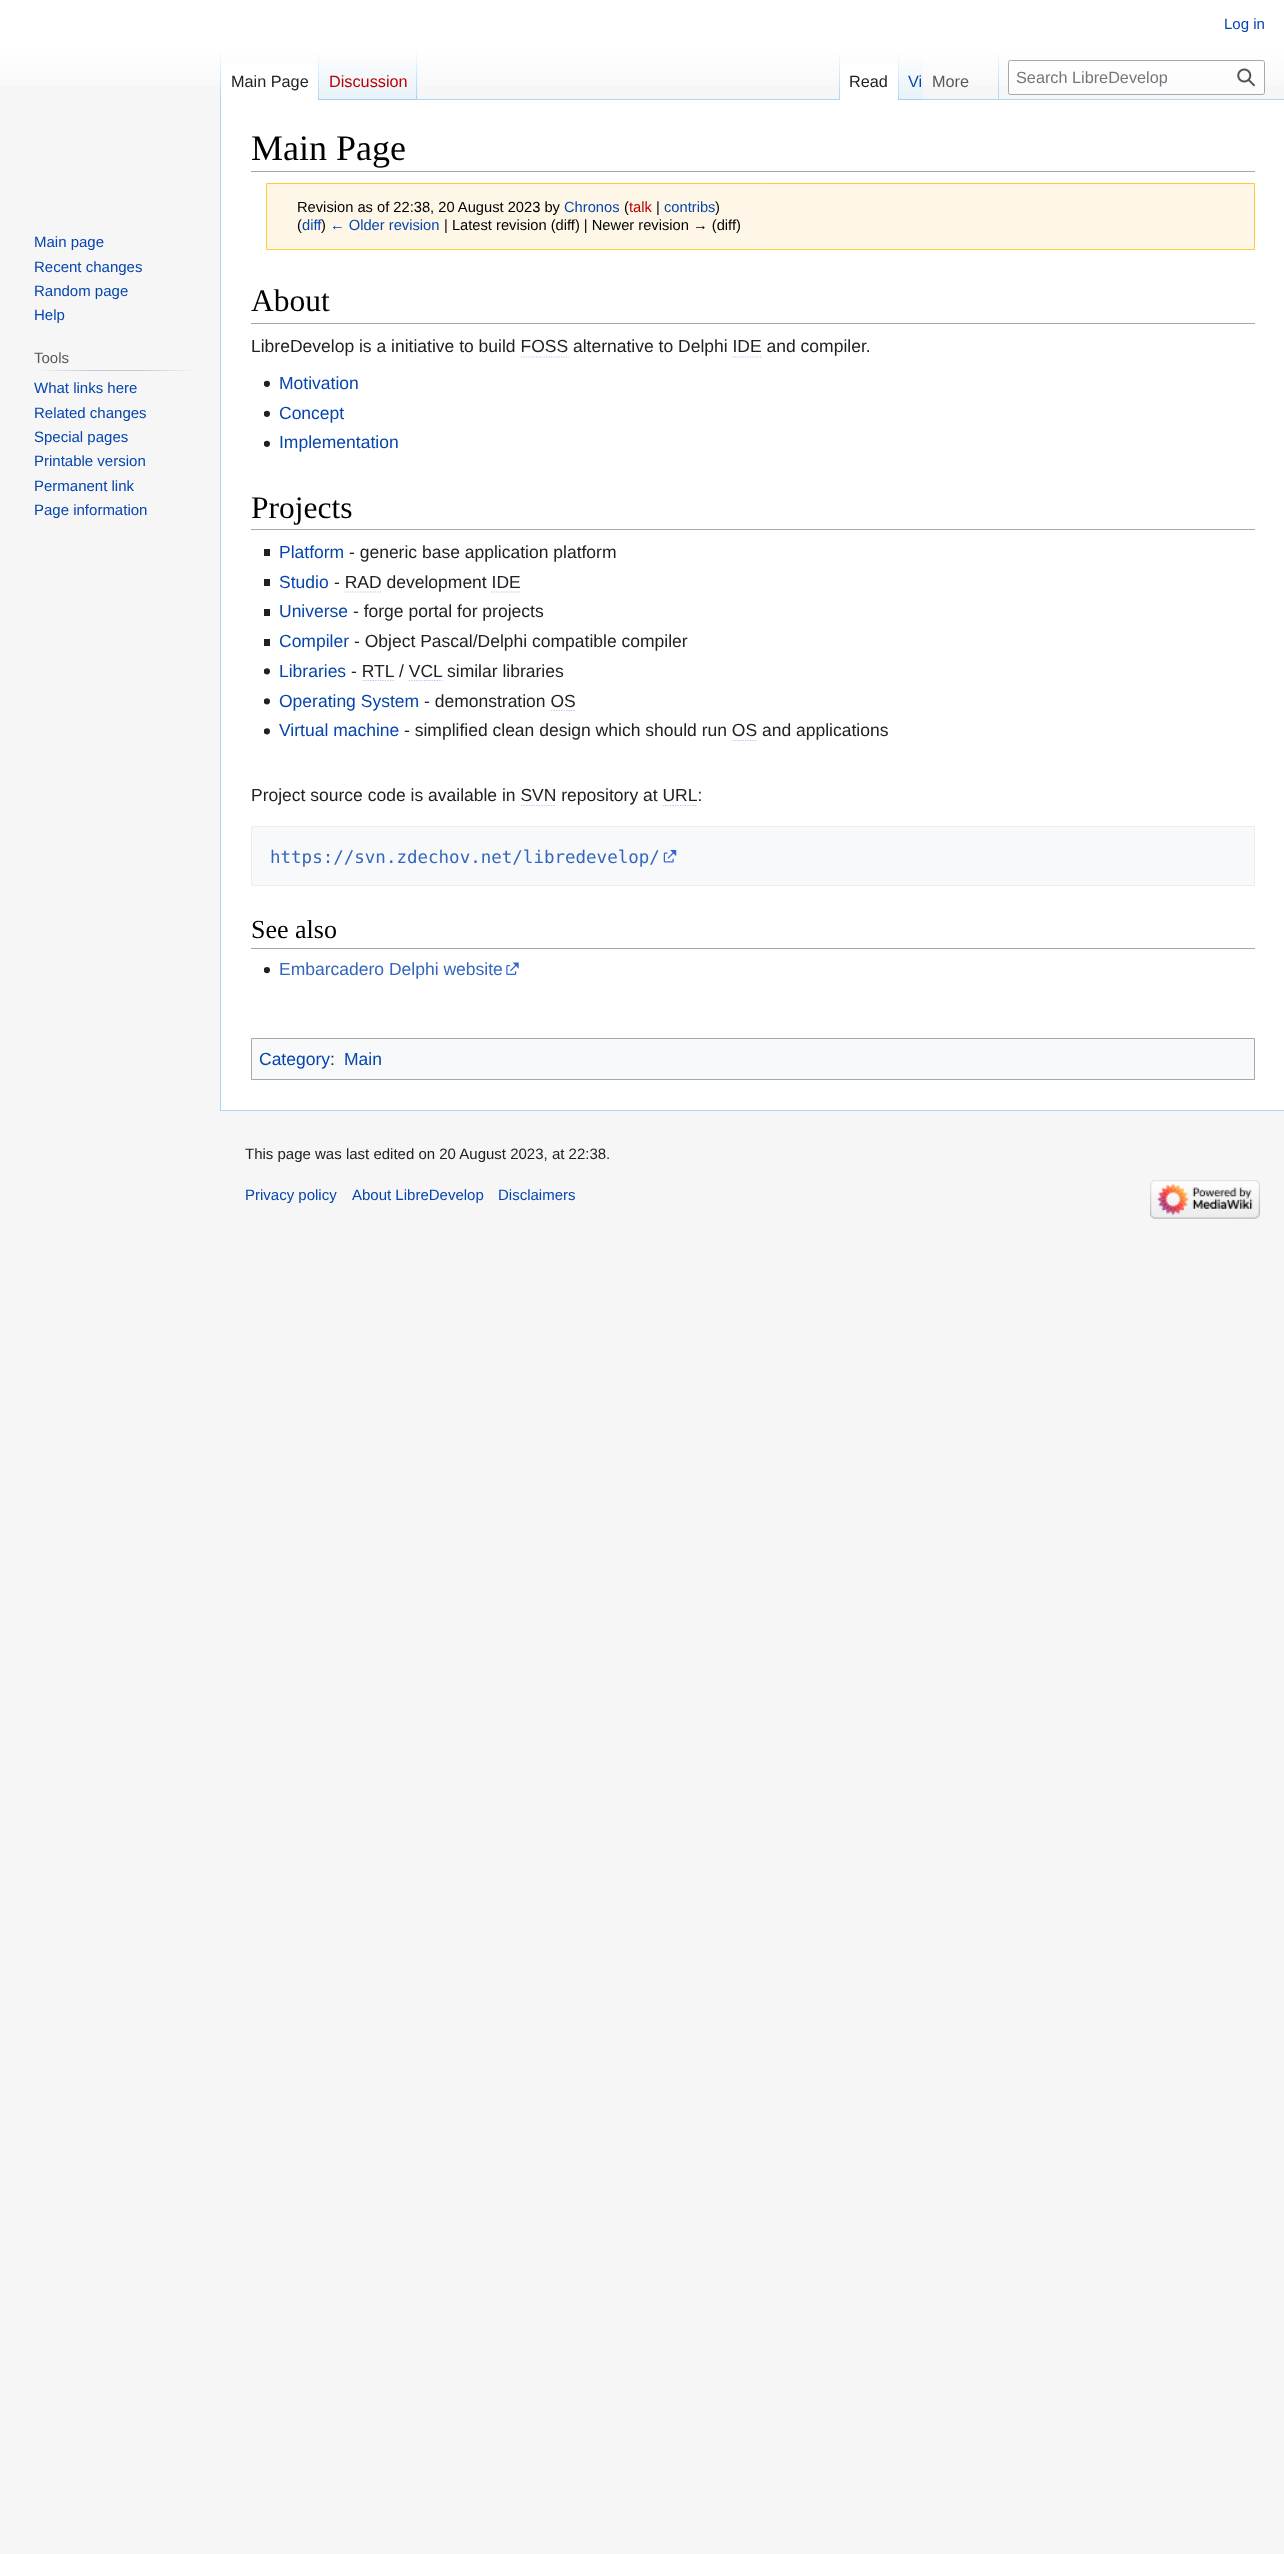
<!DOCTYPE html>
<meta charset="utf-8">
<style>body { margin: 0 } canvas { display: block }</style>
<canvas id="canvas" width="1284" height="2554"></canvas>
<script type="module">
  const canvas = document.getElementById("canvas");
  const g = canvas.getContext("2d");
  g.miterLimit = 4;
  g.fontKerning = "normal";
  function drawText(s, x, y, [font, color]) {
    g.font = font;
    g.fillStyle = color;
    g.fillText(s, x, y);
  }
  function fillBox(x, y, w, h, color) {
    g.fillStyle = color;
    g.fillRect(x, y, w, h);
  }
  async function drawPicture(src, x, y, w, h) {
    const img = new Image();
    img.src = src;
    await img.decode();
    g.drawImage(img, x, y, w, h);
  }
  let gradient;

  const s1 = ["15px Liberation Sans", "#0645AD"];
  const s2 = ["16.25px Liberation Sans", "#202122"];
  const s3 = ["16.25px Liberation Sans", "#BA0000"];
  const s4 = ["16.25px Liberation Sans", "#0645AD"];
  const s5 = ["16.25px Liberation Sans", "#54595D"];
  const s6 = ["16.25px Liberation Sans", "#72777D"];
  const s7 = ["15px Liberation Sans", "#54595D"];
  const s8 = ["36px Liberation Serif", "#000000"];
  const s9 = ["14.7px Liberation Sans", "#000000"];
  const s10 = ["14.7px Liberation Sans", "#0645AD"];
  const s11 = ["14.7px Liberation Sans", "#BA0000"];
  const s12 = ["31.5px Liberation Serif", "#000000"];
  const s13 = ["17.5px Liberation Sans", "#202122"];
  const s14 = ["17.5px Liberation Sans", "#0645AD"];
  const s15 = ["17.5px DejaVu Sans Mono", "#3366BB"];
  const s16 = ["26px Liberation Serif", "#000000"];
  const s17 = ["17.5px Liberation Sans", "#3366BB"];
  const s18 = ["15px Liberation Sans", "#202122"];

  fillBox(0, 0, 1284, 2554, "#F6F6F6");
  gradient = g.createLinearGradient(643, 0, 643, 100);
  gradient.addColorStop(0.5, "#FFFFFF");
  gradient.addColorStop(1, "#F6F6F6");
  g.fillStyle = gradient;
  g.fillRect(0, 0, 1284, 86);
  drawText("Log in", 1224, 29, s1);
  fillBox(220, 1110, 1064, 1, "#A7D7F9");
  fillBox(220, 99, 1, 1012, "#A7D7F9");
  gradient = g.createLinearGradient(221, 50, 221, 100);
  gradient.addColorStop(0, "rgba(167, 215, 249, 0)");
  gradient.addColorStop(1, "#A7D7F9");
  g.fillStyle = gradient;
  g.fillRect(220, 50, 1, 50);
  fillBox(221, 64, 97, 36, "#FFFFFF");
  gradient = g.createLinearGradient(318, 50, 318, 100);
  gradient.addColorStop(0, "#FFFFFF");
  gradient.addColorStop(1, "#A7D7F9");
  g.fillStyle = gradient;
  g.fillRect(318, 50, 1, 50);
  drawText("Main Page", 231, 87, s2);
  gradient = g.createLinearGradient(368, 100, 368, 50);
  gradient.addColorStop(0, "#77C1F6");
  gradient.addColorStop(0.03, "#E8F2F8");
  gradient.addColorStop(1, "#FFFFFF");
  g.fillStyle = gradient;
  g.fillRect(319, 57, 99, 43);
  gradient = g.createLinearGradient(417, 50, 417, 100);
  gradient.addColorStop(0, "rgba(167, 215, 249, 0)");
  gradient.addColorStop(1, "#A7D7F9");
  g.fillStyle = gradient;
  g.fillRect(416, 50, 1, 50);
  drawText("Discussion", 329, 87, s3);
  fillBox(418, 99, 866, 1, "#A7D7F9");
  gradient = g.createLinearGradient(839, 50, 839, 100);
  gradient.addColorStop(0, "rgba(167, 215, 249, 0)");
  gradient.addColorStop(1, "#A7D7F9");
  g.fillStyle = gradient;
  g.fillRect(839, 50, 1, 50);
  fillBox(840, 64, 58, 36, "#FFFFFF");
  gradient = g.createLinearGradient(898, 50, 898, 100);
  gradient.addColorStop(0, "#FFFFFF");
  gradient.addColorStop(1, "#A7D7F9");
  g.fillStyle = gradient;
  g.fillRect(898, 50, 1, 50);
  drawText("Read", 849, 87, s2);
  gradient = g.createLinearGradient(911, 100, 911, 50);
  gradient.addColorStop(0, "#77C1F6");
  gradient.addColorStop(0.03, "#E8F2F8");
  gradient.addColorStop(1, "#FFFFFF");
  g.fillStyle = gradient;
  g.fillRect(899, 57, 24, 43);
  drawText("Vi", 908, 87, s4);
  gradient = g.createLinearGradient(998, 50, 998, 100);
  gradient.addColorStop(0, "rgba(167, 215, 249, 0)");
  gradient.addColorStop(1, "#A7D7F9");
  g.fillStyle = gradient;
  g.fillRect(998, 50, 1, 50);
  drawText("More", 932, 87, s5);
  g.fillStyle = "rgba(255, 255, 255, 0.5)";
  g.beginPath();
  g.roundRect(1008.5, 60.5, 256, 34, 2);
  g.fill();
  g.strokeStyle = "#A2A9B1";
  g.stroke();
  drawText("Search LibreDevelop", 1016, 83, s6);
  await drawPicture("pic1.png", 1237, 68, 19, 19);
  drawText("Main page", 34, 247, s1);
  drawText("Recent changes", 34, 272, s1);
  drawText("Random page", 34, 296, s1);
  drawText("Help", 34, 320, s1);
  gradient = g.createLinearGradient(34, 371, 198, 371);
  gradient.addColorStop(0, "#F6F6F6");
  gradient.addColorStop(0.33, "#C8CCD1");
  gradient.addColorStop(0.66, "#C8CCD1");
  gradient.addColorStop(1, "#F6F6F6");
  g.fillStyle = gradient;
  g.fillRect(34, 370, 164, 1);
  drawText("Tools", 34, 363, s7);
  drawText("What links here", 34, 393, s1);
  drawText("Related changes", 34, 418, s1);
  drawText("Special pages", 34, 442, s1);
  drawText("Printable version", 34, 466, s1);
  drawText("Permanent link", 34, 491, s1);
  drawText("Page information", 34, 515, s1);
  fillBox(221, 100, 1063, 1010, "#FFFFFF");
  fillBox(251, 171, 1004, 1, "#A2A9B1");
  drawText("Main Page", 251, 160, s8);
  g.fillStyle = "#FEF6E7";
  g.beginPath();
  g.rect(266.5, 183.5, 988, 66);
  g.fill();
  g.strokeStyle = "#FFCC33";
  g.stroke();
  drawText("Revision as of 22:38, 20 August 2023 by", 297, 212, s9);
  drawText("Chronos", 564, 212, s10);
  drawText("(", 624, 212, s9);
  drawText("talk", 629, 212, s11);
  drawText("|", 656, 212, s9);
  drawText("contribs", 664, 212, s10);
  drawText(")", 715, 212, s9);
  drawText("(", 297, 230, s9);
  drawText("diff", 302, 230, s10);
  drawText(")", 321, 230, s9);
  drawText("← Older revision", 330, 230, s10);
  drawText("| Latest revision (diff) | Newer revision → (diff)", 444, 230, s9);
  fillBox(251, 323, 1004, 1, "#A2A9B1");
  drawText("About", 251, 311, s12);
  drawText("LibreDevelop is a initiative to build FOSS alternative to Delphi IDE and compiler.", 251, 352, s13);
  g.beginPath();
  g.moveTo(521, 357);
  g.lineTo(569, 357);
  g.strokeStyle = "#BBBBFF";
  g.lineWidth = 1.2;
  g.setLineDash([1.25, 1.25]);
  g.stroke();
  g.beginPath();
  g.moveTo(732.5, 357);
  g.lineTo(762.5, 357);
  g.stroke();
  await drawPicture("pic2.png", 264, 380, 6, 7);
  drawText("Motivation", 279, 389, s14);
  await drawPicture("pic2.png", 264, 410, 6, 7);
  drawText("Concept", 279, 419, s14);
  await drawPicture("pic2.png", 264, 440, 6, 7);
  drawText("Implementation", 279, 448, s14);
  fillBox(251, 529, 1004, 1, "#A2A9B1");
  drawText("Projects", 251, 518, s12);
  fillBox(264, 549, 6, 7, "#202122");
  drawText("Platform", 279, 558, s14);
  drawText("- generic base application platform", 349, 558, s13);
  fillBox(264, 579, 6, 7, "#202122");
  drawText("Studio", 279, 588, s14);
  drawText("- RAD development IDE", 334, 588, s13);
  g.beginPath();
  g.moveTo(345, 592);
  g.lineTo(381, 592);
  g.stroke();
  g.beginPath();
  g.moveTo(491, 592);
  g.lineTo(520, 592);
  g.stroke();
  fillBox(264, 609, 6, 7, "#202122");
  drawText("Universe", 279, 617, s14);
  drawText("- forge portal for projects", 353, 617, s13);
  fillBox(264, 639, 6, 7, "#202122");
  drawText("Compiler", 279, 647, s14);
  drawText("- Object Pascal/Delphi compatible compiler", 354, 647, s13);
  await drawPicture("pic3.png", 264, 668, 6, 7);
  drawText("Libraries", 279, 677, s14);
  drawText("- RTL", 351, 677, s13);
  drawText("/ VCL", 399, 677, s13);
  drawText("similar libraries", 447, 677, s13);
  g.beginPath();
  g.moveTo(362.5, 680.5);
  g.lineTo(394, 680.5);
  g.stroke();
  g.beginPath();
  g.moveTo(409, 680.5);
  g.lineTo(442.5, 680.5);
  g.stroke();
  await drawPicture("pic3.png", 264, 698, 6, 7);
  drawText("Operating System", 279, 707, s14);
  drawText("- demonstration OS", 424, 707, s13);
  g.beginPath();
  g.moveTo(551, 710.5);
  g.lineTo(576, 710.5);
  g.stroke();
  await drawPicture("pic3.png", 264, 728, 6, 7);
  drawText("Virtual machine", 279, 736, s14);
  drawText("- simplified clean design which should run OS and applications", 404, 736, s13);
  g.beginPath();
  g.moveTo(732.5, 740.5);
  g.lineTo(757.5, 740.5);
  g.stroke();
  drawText("Project source code is available in SVN repository at URL:", 251, 801, s13);
  g.beginPath();
  g.moveTo(521, 805.5);
  g.lineTo(556, 805.5);
  g.stroke();
  g.beginPath();
  g.moveTo(662.5, 805.5);
  g.lineTo(697.5, 805.5);
  g.stroke();
  g.fillStyle = "#F8F9FA";
  g.beginPath();
  g.rect(251.5, 826.5, 1003, 59);
  g.fill();
  g.strokeStyle = "#EAECF0";
  g.lineWidth = 1;
  g.setLineDash([]);
  g.stroke();
  drawText("https://svn.zdechov.net/libredevelop/", 270, 863, s15);
  await drawPicture("pic4.png", 663, 850, 14, 13);
  fillBox(251, 948, 1004, 1, "#A2A9B1");
  drawText("See also", 251, 938, s16);
  await drawPicture("pic5.png", 264, 967, 6, 7);
  drawText("Embarcadero Delphi website", 279, 975, s17);
  await drawPicture("pic6.png", 506, 962, 13, 13);
  g.fillStyle = "#F8F9FA";
  g.beginPath();
  g.rect(251.5, 1038.5, 1003, 41);
  g.fill();
  g.strokeStyle = "#A2A9B1";
  g.stroke();
  drawText("Category", 259, 1065, s14);
  drawText(":", 330, 1065, s13);
  drawText("Main", 344, 1065, s14);
  drawText("This page was last edited on 20 August 2023, at 22:38.", 245, 1159, s18);
  drawText("Privacy policy", 245, 1200, s1);
  drawText("About LibreDevelop", 352, 1200, s1);
  drawText("Disclaimers", 498, 1200, s1);
  await drawPicture("pic7.png", 1150, 1180, 110, 39);
</script>
